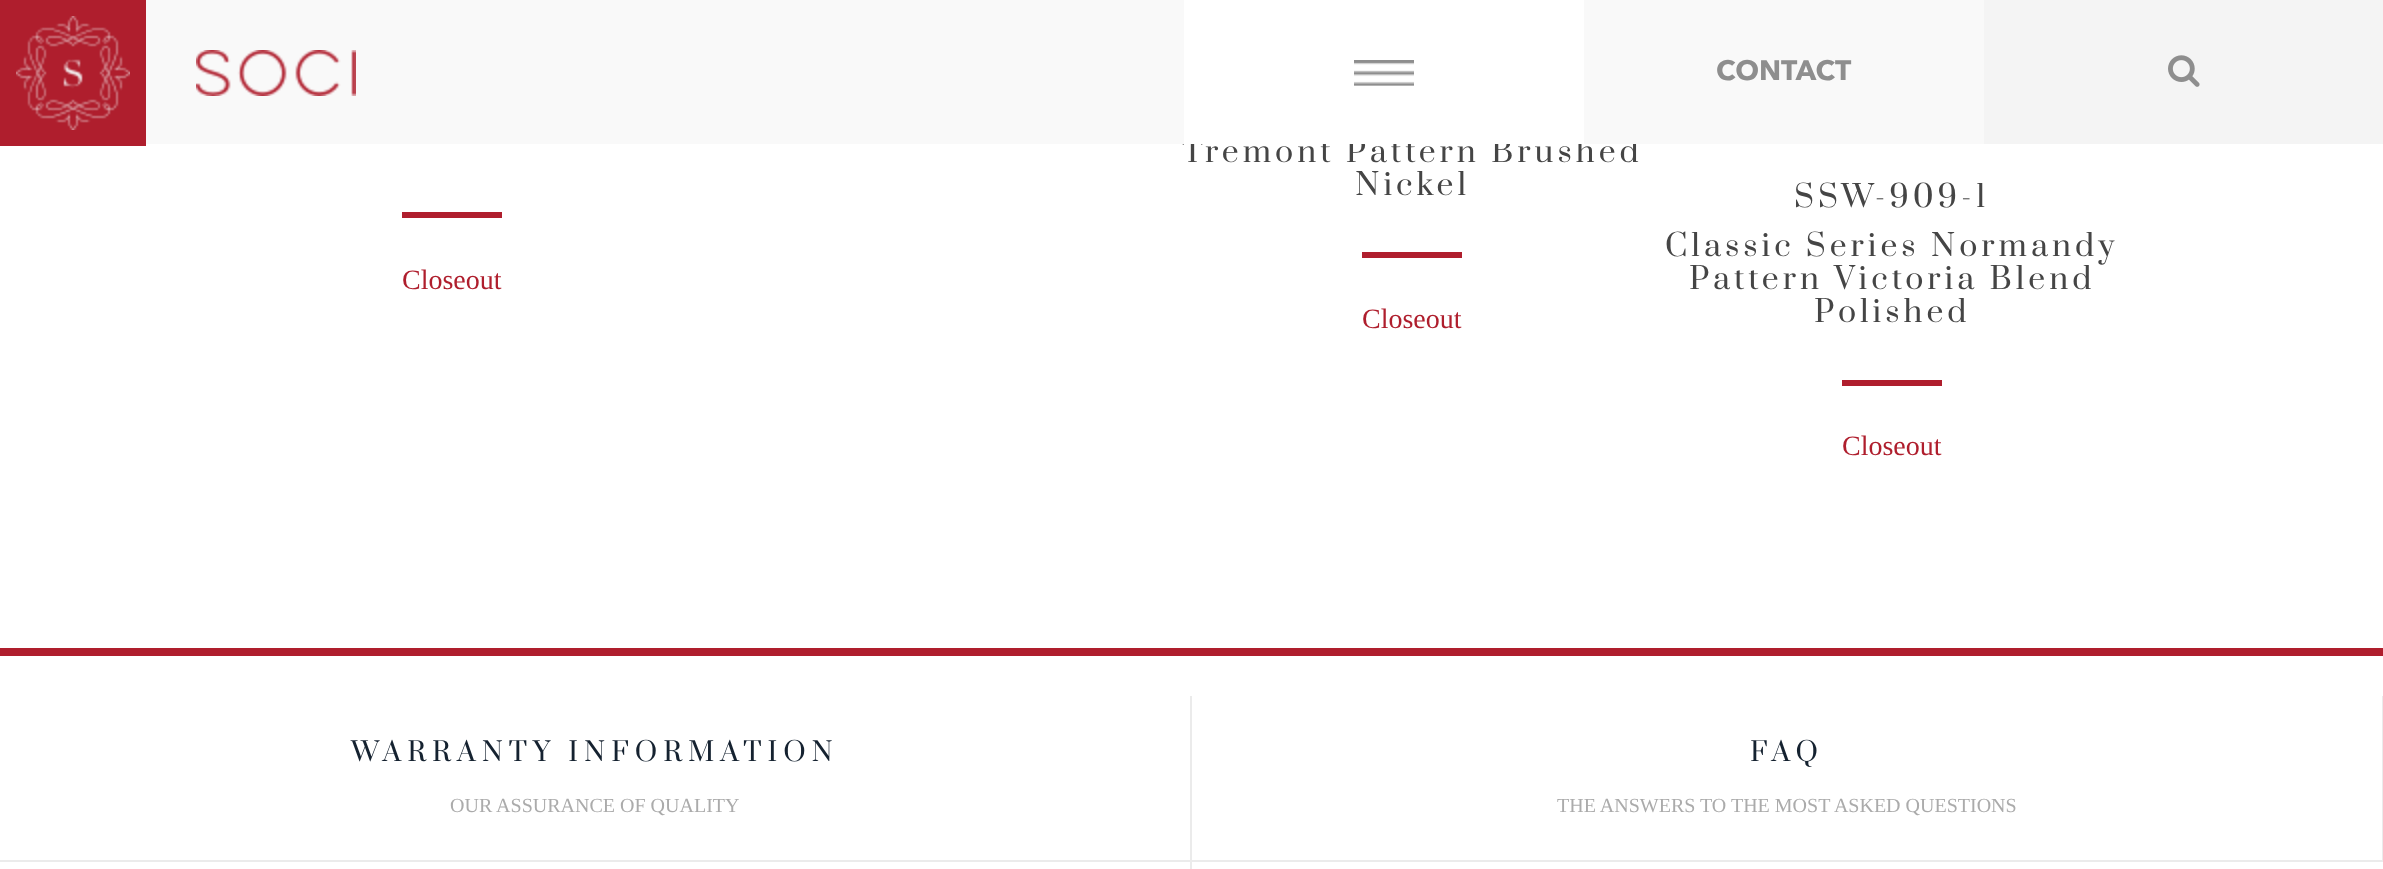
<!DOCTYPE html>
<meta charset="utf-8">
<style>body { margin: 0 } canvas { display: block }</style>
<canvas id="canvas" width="2383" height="869"></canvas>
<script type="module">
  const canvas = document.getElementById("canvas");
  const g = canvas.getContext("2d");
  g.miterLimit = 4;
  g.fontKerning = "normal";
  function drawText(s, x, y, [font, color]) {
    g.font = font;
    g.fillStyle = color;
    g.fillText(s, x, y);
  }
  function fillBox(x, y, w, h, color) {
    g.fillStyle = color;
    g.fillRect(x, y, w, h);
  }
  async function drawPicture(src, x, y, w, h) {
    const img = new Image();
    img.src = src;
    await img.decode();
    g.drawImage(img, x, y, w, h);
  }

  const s1 = ["30px Prata", "#454545"];
  const s2 = ["bold 28px Avenir Next", "#8E8E8E"];
  const s3 = ["28px Liberation Serif", "#AF1E2D"];
  const s4 = ["26px Prata", "#152230"];
  const s5 = ["20px Liberation Serif", "#ABABAB"];

  fillBox(0, 0, 2383, 869, "#FFFFFF");
  g.letterSpacing = "4px";
  drawText("Tremont Pattern Brushed", 1182, 162, s1);
  fillBox(146, 0, 1838, 144, "#F9F9F9");
  fillBox(0, 0, 146, 146, "#AF1E2D");
  await drawPicture("pic1.png", 16, 16, 114, 114);
  await drawPicture("pic2.png", 196, 50, 160, 46);
  fillBox(1184, 0, 400, 144, "#FFFFFF");
  await drawPicture("pic3.png", 1354, 60, 60, 26);
  g.letterSpacing = "0px";
  drawText("CONTACT", 1716, 80, s2);
  fillBox(1984, 0, 399, 144, "#F4F4F4");
  await drawPicture("pic4.png", 2168, 55, 32, 32);
  fillBox(402, 212, 100, 6, "#AF1E2D");
  drawText("Closeout", 402, 289, s3);
  g.letterSpacing = "4px";
  drawText("Nickel", 1355, 195, s1);
  fillBox(1362, 252, 100, 6, "#AF1E2D");
  g.letterSpacing = "0px";
  drawText("Closeout", 1362, 328, s3);
  g.letterSpacing = "4px";
  drawText("SSW-909-1", 1794, 207, s1);
  drawText("Classic Series Normandy", 1665, 256, s1);
  drawText("Pattern Victoria Blend", 1689, 289, s1);
  drawText("Polished", 1814, 322, s1);
  fillBox(1842, 380, 100, 6, "#AF1E2D");
  g.letterSpacing = "0px";
  drawText("Closeout", 1842, 455, s3);
  fillBox(0, 648, 2383, 8, "#AF1E2D");
  fillBox(1190, 696, 2, 173, "#EBEBEB");
  fillBox(0, 860, 1192, 2, "#EBEBEB");
  g.letterSpacing = "6px";
  drawText("WARRANTY INFORMATION", 351, 761, s4);
  g.letterSpacing = "0px";
  drawText("OUR ASSURANCE OF QUALITY", 450, 812, s5);
  fillBox(2382, 696, 1, 166, "#EBEBEB");
  fillBox(1192, 860, 1191, 2, "#EBEBEB");
  g.letterSpacing = "6px";
  drawText("FAQ", 1750, 761, s4);
  g.letterSpacing = "0px";
  drawText("THE ANSWERS TO THE MOST ASKED QUESTIONS", 1557, 812, s5);
</script>
